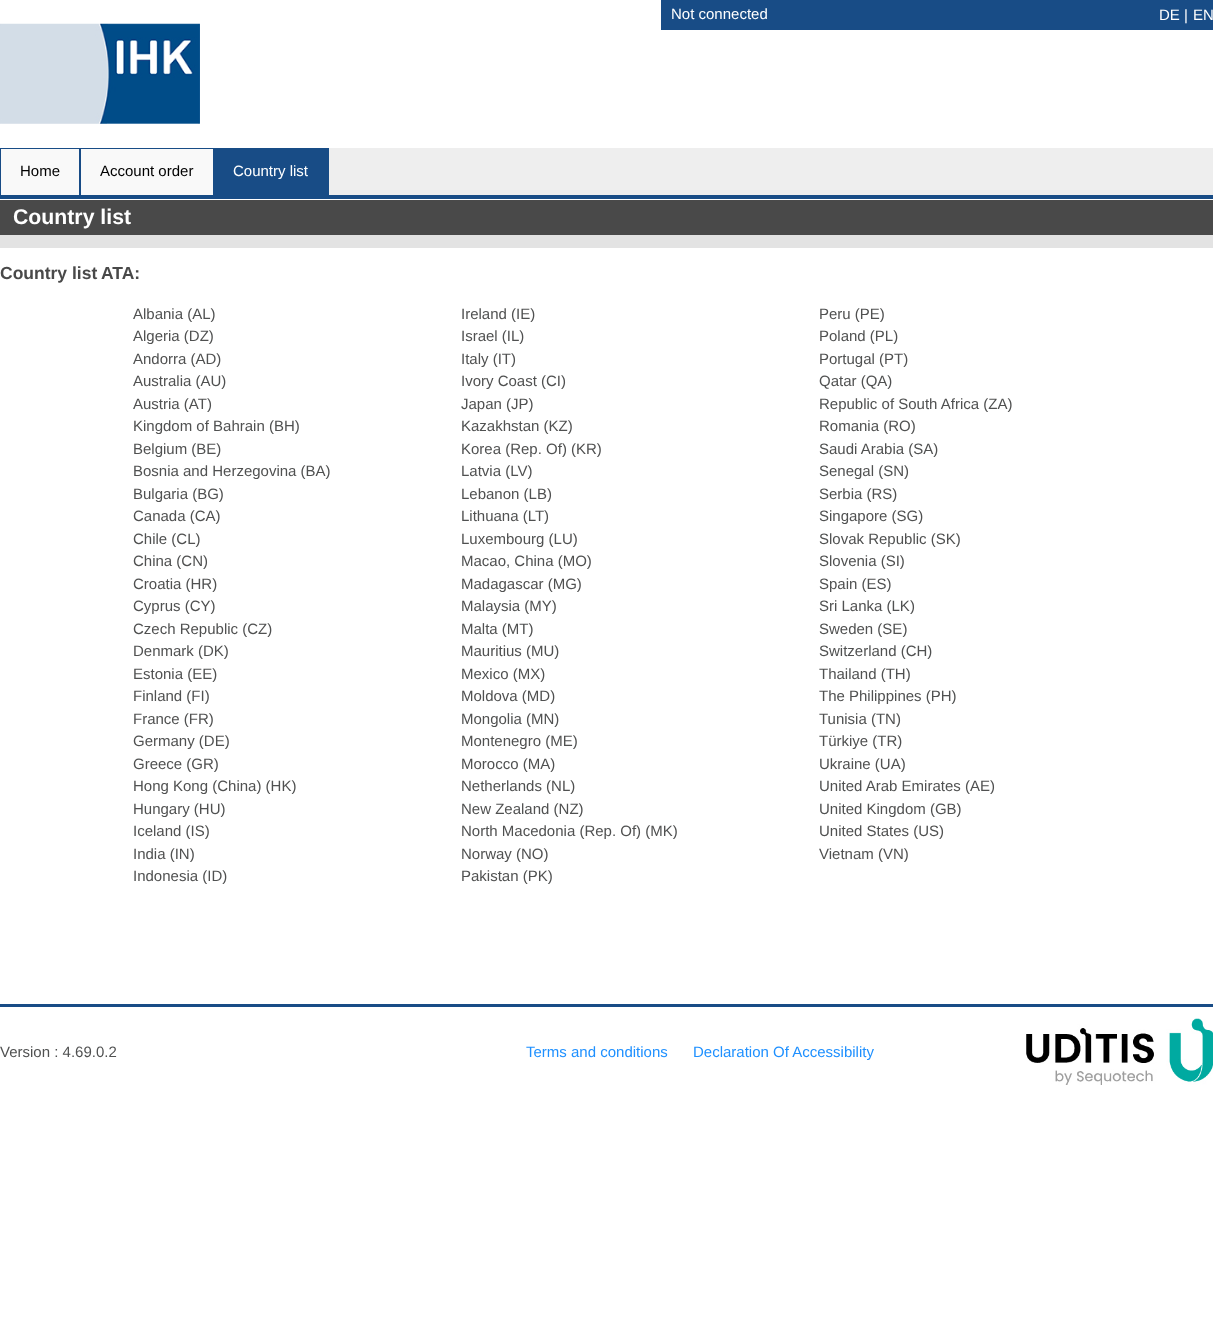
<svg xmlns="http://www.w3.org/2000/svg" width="1213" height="1331">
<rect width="100%" height="100%" fill="#fff"/>
<image x="0" y="23" width="200" height="101" href="media/1.png"/>
<rect x="661" width="552" height="30" fill="#184c86"/>
<text x="671" y="19" style="font-family:Liberation Sans;font-size:15px;fill:#fff">Not connected</text>
<text x="1159" y="20" style="font-family:Liberation Sans;font-size:15px;fill:#fff">DE</text>
<text x="1184" y="20" style="font-family:Liberation Sans;font-size:15px;fill:#fff">|</text>
<text x="1193" y="20" style="font-family:Liberation Sans;font-size:15px;fill:#fff">EN</text>
<rect x="329" y="148" width="884" height="47" fill="#eee"/>
<rect y="195" width="1213" height="4" fill="#184c86"/>
<rect x="1" y="149" width="78" height="46" fill="#f9f9f9"/>
<rect y="148" width="329" height="1" fill="#184c86"/>
<rect x="79" y="148" width="2" height="47" fill="#184c86"/>
<rect y="148" width="1" height="47" fill="#184c86"/>
<text x="20" y="176" style="font-family:Liberation Sans;font-size:15px;fill:#000">Home</text>
<rect x="81" y="149" width="132" height="46" fill="#f9f9f9"/>
<rect x="213" y="148" width="2" height="47" fill="#184c86"/>
<text x="100" y="176" style="font-family:Liberation Sans;font-size:15px;fill:#000">Account order</text>
<rect x="215" y="149" width="113" height="46" fill="#184c86"/>
<rect x="328" y="148" width="1" height="47" fill="#184c86"/>
<text x="233" y="176" style="font-family:Liberation Sans;font-size:15px;fill:#fff">Country list</text>
<rect y="200" width="1213" height="35" fill="#494949"/>
<text x="13" y="224" style="font-family:Liberation Sans;font-size:21.25px;font-weight:bold;fill:#fff">Country list</text>
<rect y="235" width="1213" height="13" fill="#e3e3e3"/>
<text x="0" y="279" style="font-family:Liberation Sans;font-size:17.5px;font-weight:bold;fill:#494949">Country list</text>
<text x="101" y="279" style="font-family:Liberation Sans;font-size:17.5px;font-weight:bold;fill:#494949">ATA:</text>
<text x="133" y="319" style="font-family:Liberation Sans;font-size:15px;fill:#505151">Albania (AL)</text>
<text x="133" y="341" style="font-family:Liberation Sans;font-size:15px;fill:#505151">Algeria (DZ)</text>
<text x="133" y="364" style="font-family:Liberation Sans;font-size:15px;fill:#505151">Andorra (AD)</text>
<text x="133" y="386" style="font-family:Liberation Sans;font-size:15px;fill:#505151">Australia (AU)</text>
<text x="133" y="409" style="font-family:Liberation Sans;font-size:15px;fill:#505151">Austria (AT)</text>
<text x="133" y="431" style="font-family:Liberation Sans;font-size:15px;fill:#505151">Kingdom of Bahrain (BH)</text>
<text x="133" y="454" style="font-family:Liberation Sans;font-size:15px;fill:#505151">Belgium (BE)</text>
<text x="133" y="476" style="font-family:Liberation Sans;font-size:15px;fill:#505151">Bosnia and Herzegovina (BA)</text>
<text x="133" y="499" style="font-family:Liberation Sans;font-size:15px;fill:#505151">Bulgaria (BG)</text>
<text x="133" y="521" style="font-family:Liberation Sans;font-size:15px;fill:#505151">Canada (CA)</text>
<text x="133" y="544" style="font-family:Liberation Sans;font-size:15px;fill:#505151">Chile (CL)</text>
<text x="133" y="566" style="font-family:Liberation Sans;font-size:15px;fill:#505151">China (CN)</text>
<text x="133" y="589" style="font-family:Liberation Sans;font-size:15px;fill:#505151">Croatia (HR)</text>
<text x="133" y="611" style="font-family:Liberation Sans;font-size:15px;fill:#505151">Cyprus (CY)</text>
<text x="133" y="634" style="font-family:Liberation Sans;font-size:15px;fill:#505151">Czech Republic (CZ)</text>
<text x="133" y="656" style="font-family:Liberation Sans;font-size:15px;fill:#505151">Denmark (DK)</text>
<text x="133" y="679" style="font-family:Liberation Sans;font-size:15px;fill:#505151">Estonia (EE)</text>
<text x="133" y="701" style="font-family:Liberation Sans;font-size:15px;fill:#505151">Finland (FI)</text>
<text x="133" y="724" style="font-family:Liberation Sans;font-size:15px;fill:#505151">France (FR)</text>
<text x="133" y="746" style="font-family:Liberation Sans;font-size:15px;fill:#505151">Germany (DE)</text>
<text x="133" y="769" style="font-family:Liberation Sans;font-size:15px;fill:#505151">Greece (GR)</text>
<text x="133" y="791" style="font-family:Liberation Sans;font-size:15px;fill:#505151">Hong Kong (China) (HK)</text>
<text x="133" y="814" style="font-family:Liberation Sans;font-size:15px;fill:#505151">Hungary (HU)</text>
<text x="133" y="836" style="font-family:Liberation Sans;font-size:15px;fill:#505151">Iceland (IS)</text>
<text x="133" y="859" style="font-family:Liberation Sans;font-size:15px;fill:#505151">India (IN)</text>
<text x="133" y="881" style="font-family:Liberation Sans;font-size:15px;fill:#505151">Indonesia (ID)</text>
<text x="461" y="319" style="font-family:Liberation Sans;font-size:15px;fill:#505151">Ireland (IE)</text>
<text x="461" y="341" style="font-family:Liberation Sans;font-size:15px;fill:#505151">Israel (IL)</text>
<text x="461" y="364" style="font-family:Liberation Sans;font-size:15px;fill:#505151">Italy (IT)</text>
<text x="461" y="386" style="font-family:Liberation Sans;font-size:15px;fill:#505151">Ivory Coast (CI)</text>
<text x="461" y="409" style="font-family:Liberation Sans;font-size:15px;fill:#505151">Japan (JP)</text>
<text x="461" y="431" style="font-family:Liberation Sans;font-size:15px;fill:#505151">Kazakhstan (KZ)</text>
<text x="461" y="454" style="font-family:Liberation Sans;font-size:15px;fill:#505151">Korea (Rep. Of) (KR)</text>
<text x="461" y="476" style="font-family:Liberation Sans;font-size:15px;fill:#505151">Latvia (LV)</text>
<text x="461" y="499" style="font-family:Liberation Sans;font-size:15px;fill:#505151">Lebanon (LB)</text>
<text x="461" y="521" style="font-family:Liberation Sans;font-size:15px;fill:#505151">Lithuana (LT)</text>
<text x="461" y="544" style="font-family:Liberation Sans;font-size:15px;fill:#505151">Luxembourg (LU)</text>
<text x="461" y="566" style="font-family:Liberation Sans;font-size:15px;fill:#505151">Macao, China (MO)</text>
<text x="461" y="589" style="font-family:Liberation Sans;font-size:15px;fill:#505151">Madagascar (MG)</text>
<text x="461" y="611" style="font-family:Liberation Sans;font-size:15px;fill:#505151">Malaysia (MY)</text>
<text x="461" y="634" style="font-family:Liberation Sans;font-size:15px;fill:#505151">Malta (MT)</text>
<text x="461" y="656" style="font-family:Liberation Sans;font-size:15px;fill:#505151">Mauritius (MU)</text>
<text x="461" y="679" style="font-family:Liberation Sans;font-size:15px;fill:#505151">Mexico (MX)</text>
<text x="461" y="701" style="font-family:Liberation Sans;font-size:15px;fill:#505151">Moldova (MD)</text>
<text x="461" y="724" style="font-family:Liberation Sans;font-size:15px;fill:#505151">Mongolia (MN)</text>
<text x="461" y="746" style="font-family:Liberation Sans;font-size:15px;fill:#505151">Montenegro (ME)</text>
<text x="461" y="769" style="font-family:Liberation Sans;font-size:15px;fill:#505151">Morocco (MA)</text>
<text x="461" y="791" style="font-family:Liberation Sans;font-size:15px;fill:#505151">Netherlands (NL)</text>
<text x="461" y="814" style="font-family:Liberation Sans;font-size:15px;fill:#505151">New Zealand (NZ)</text>
<text x="461" y="836" style="font-family:Liberation Sans;font-size:15px;fill:#505151">North Macedonia (Rep. Of) (MK)</text>
<text x="461" y="859" style="font-family:Liberation Sans;font-size:15px;fill:#505151">Norway (NO)</text>
<text x="461" y="881" style="font-family:Liberation Sans;font-size:15px;fill:#505151">Pakistan (PK)</text>
<text x="819" y="319" style="font-family:Liberation Sans;font-size:15px;fill:#505151">Peru (PE)</text>
<text x="819" y="341" style="font-family:Liberation Sans;font-size:15px;fill:#505151">Poland (PL)</text>
<text x="819" y="364" style="font-family:Liberation Sans;font-size:15px;fill:#505151">Portugal (PT)</text>
<text x="819" y="386" style="font-family:Liberation Sans;font-size:15px;fill:#505151">Qatar (QA)</text>
<text x="819" y="409" style="font-family:Liberation Sans;font-size:15px;fill:#505151">Republic of South Africa (ZA)</text>
<text x="819" y="431" style="font-family:Liberation Sans;font-size:15px;fill:#505151">Romania (RO)</text>
<text x="819" y="454" style="font-family:Liberation Sans;font-size:15px;fill:#505151">Saudi Arabia (SA)</text>
<text x="819" y="476" style="font-family:Liberation Sans;font-size:15px;fill:#505151">Senegal (SN)</text>
<text x="819" y="499" style="font-family:Liberation Sans;font-size:15px;fill:#505151">Serbia (RS)</text>
<text x="819" y="521" style="font-family:Liberation Sans;font-size:15px;fill:#505151">Singapore (SG)</text>
<text x="819" y="544" style="font-family:Liberation Sans;font-size:15px;fill:#505151">Slovak Republic (SK)</text>
<text x="819" y="566" style="font-family:Liberation Sans;font-size:15px;fill:#505151">Slovenia (SI)</text>
<text x="819" y="589" style="font-family:Liberation Sans;font-size:15px;fill:#505151">Spain (ES)</text>
<text x="819" y="611" style="font-family:Liberation Sans;font-size:15px;fill:#505151">Sri Lanka (LK)</text>
<text x="819" y="634" style="font-family:Liberation Sans;font-size:15px;fill:#505151">Sweden (SE)</text>
<text x="819" y="656" style="font-family:Liberation Sans;font-size:15px;fill:#505151">Switzerland (CH)</text>
<text x="819" y="679" style="font-family:Liberation Sans;font-size:15px;fill:#505151">Thailand (TH)</text>
<text x="819" y="701" style="font-family:Liberation Sans;font-size:15px;fill:#505151">The Philippines (PH)</text>
<text x="819" y="724" style="font-family:Liberation Sans;font-size:15px;fill:#505151">Tunisia (TN)</text>
<text x="819" y="746" style="font-family:Liberation Sans;font-size:15px;fill:#505151">Türkiye (TR)</text>
<text x="819" y="769" style="font-family:Liberation Sans;font-size:15px;fill:#505151">Ukraine (UA)</text>
<text x="819" y="791" style="font-family:Liberation Sans;font-size:15px;fill:#505151">United Arab Emirates (AE)</text>
<text x="819" y="814" style="font-family:Liberation Sans;font-size:15px;fill:#505151">United Kingdom (GB)</text>
<text x="819" y="836" style="font-family:Liberation Sans;font-size:15px;fill:#505151">United States (US)</text>
<text x="819" y="859" style="font-family:Liberation Sans;font-size:15px;fill:#505151">Vietnam (VN)</text>
<rect y="1004" width="1213" height="3" fill="#184c86"/>
<text x="0" y="1057" style="font-family:Liberation Sans;font-size:15px;fill:#505151">Version : 4.69.0.2</text>
<text x="526" y="1057" style="font-family:Liberation Sans;font-size:15px;fill:#1e90ff">Terms and conditions</text>
<text x="693" y="1057" style="font-family:Liberation Sans;font-size:15px;fill:#1e90ff">Declaration Of Accessibility</text>
<image x="1026" y="1018" width="187" height="67" href="media/2.png"/>
</svg>
